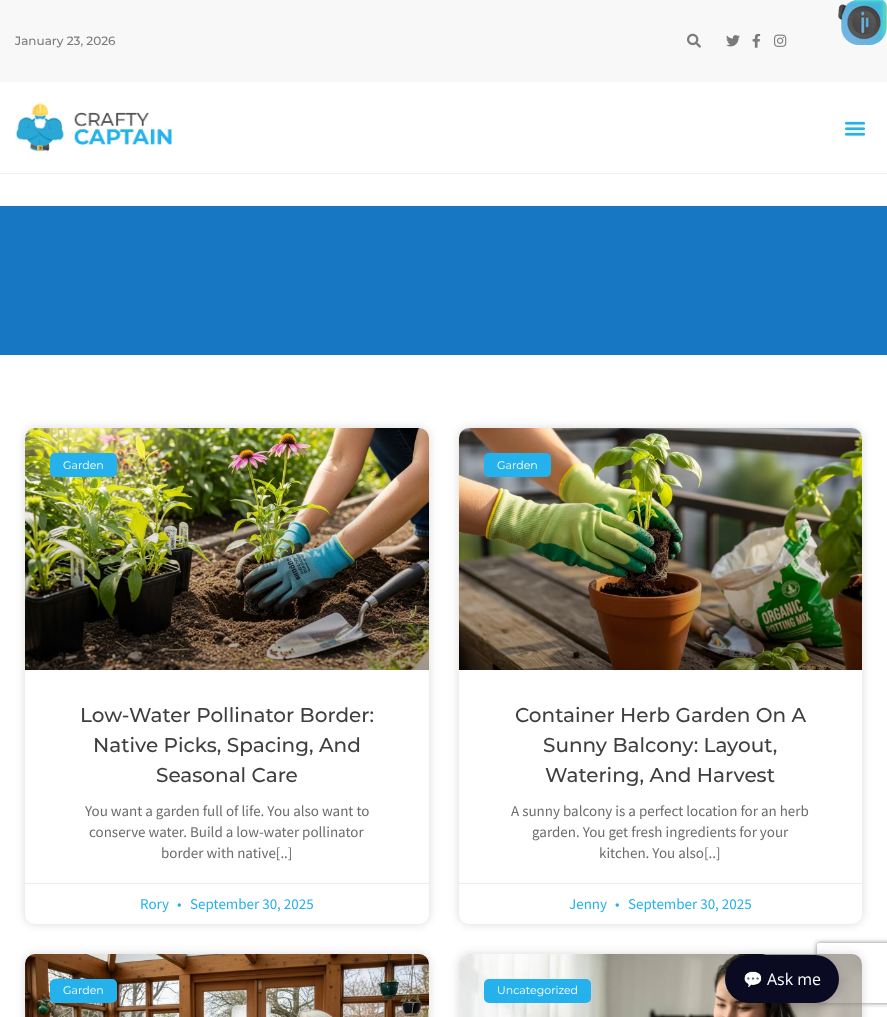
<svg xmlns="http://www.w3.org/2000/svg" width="887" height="1017">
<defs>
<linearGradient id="g1" gradientUnits="userSpaceOnUse" x1="227" y1="670" x2="227" y2="428"><stop offset="0" stop-color="#000" stop-opacity="0.35"/><stop offset="0.75" stop-color="#000" stop-opacity="0"/></linearGradient>
<linearGradient id="g2" gradientUnits="userSpaceOnUse" x1="661" y1="670" x2="661" y2="428"><stop offset="0" stop-color="#000" stop-opacity="0.35"/><stop offset="0.75" stop-color="#000" stop-opacity="0"/></linearGradient>
<clipPath id="clip1"><path d="M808 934h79v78h-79zm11 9h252c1 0 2 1 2 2v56c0 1-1 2-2 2h-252c-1 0-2-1-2-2v-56c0-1 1-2 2-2z" clip-rule="evenodd"/></clipPath>
</defs>
<rect width="100%" height="100%" fill="#fff"/>
<rect width="887" height="82" fill="#f8f8f8"/>
<text x="15" y="45" style="font-family:Montserrat;font-size:12px;font-weight:500;fill:#7b7b7b">January 23, 2026</text>
<image x="687" y="33" width="14" height="15" href="media/1.png"/>
<image x="726" y="35" width="14" height="12" href="media/2.png"/>
<image x="752" y="34" width="9" height="14" href="media/3.png"/>
<image x="774" y="34" width="13" height="13" href="media/4.png"/>
<rect y="173" width="887" height="1" fill="#f2f2f2"/>
<image x="16" y="103" width="156" height="49" href="media/5.png"/>
<image x="844" y="121" width="22" height="15" href="media/6.png"/>
<image x="838" y="0" width="49" height="45" href="media/7.png"/>
<rect y="206" width="887" height="149" fill="#1877c2"/>
<rect x="25" y="428" width="404" height="496" rx="10" fill="#00000026" filter="blur(5px)"/>
<rect x="25" y="428" width="404" height="496" rx="10" fill="#fff"/>
<image x="25" y="428" width="404" height="242" href="media/8.png"/>
<rect x="25" y="500" width="404" height="170" fill="url(#g1)"/>
<rect x="50" y="453" width="67" height="24" rx="5" fill="#25b1eb"/>
<text x="63" y="469" style="font-family:Montserrat;font-size:11px;fill:#fff">Garden</text>
<text x="80" y="722" style="font-family:Montserrat;font-size:20px;font-weight:500;fill:#3f3f3f">Low-Water Pollinator Border:</text>
<text x="93" y="752" style="font-family:Montserrat;font-size:20px;font-weight:500;fill:#3f3f3f">Native Picks, Spacing, And</text>
<text x="156" y="782" style="font-family:Montserrat;font-size:20px;font-weight:500;fill:#3f3f3f">Seasonal Care</text>
<text x="85" y="816" style="font-family:Source Sans Pro;font-size:15px;fill:#6c6c6c">You want a garden full of life. You also want to</text>
<text x="89" y="837" style="font-family:Source Sans Pro;font-size:15px;fill:#6c6c6c">conserve water. Build a low-water pollinator</text>
<text x="161" y="858" style="font-family:Source Sans Pro;font-size:15px;fill:#6c6c6c">border with native[..]</text>
<rect x="25" y="883" width="404" height="1" fill="#ececee"/>
<text x="140" y="909" style="font-family:Source Sans Pro;font-size:15px;fill:#25b1eb">Rory</text>
<text x="177" y="909" style="font-family:Source Sans Pro;font-size:15px;fill:#25b1eb">•</text>
<text x="190" y="909" style="font-family:Source Sans Pro;font-size:15px;fill:#25b1eb">September 30, 2025</text>
<rect x="459" y="428" width="403" height="496" rx="10" fill="#00000026" filter="blur(5px)"/>
<rect x="459" y="428" width="403" height="496" rx="10" fill="#fff"/>
<image x="459" y="428" width="403" height="242" href="media/9.png"/>
<rect x="459" y="500" width="403" height="170" fill="url(#g2)"/>
<rect x="484" y="453" width="67" height="24" rx="5" fill="#25b1eb"/>
<text x="497" y="469" style="font-family:Montserrat;font-size:11px;fill:#fff">Garden</text>
<text x="515" y="722" style="font-family:Montserrat;font-size:20px;font-weight:500;fill:#3f3f3f">Container Herb Garden On A</text>
<text x="543" y="752" style="font-family:Montserrat;font-size:20px;font-weight:500;fill:#3f3f3f">Sunny Balcony: Layout,</text>
<text x="545" y="782" style="font-family:Montserrat;font-size:20px;font-weight:500;fill:#3f3f3f">Watering, And Harvest</text>
<text x="511" y="816" style="font-family:Source Sans Pro;font-size:15px;fill:#6c6c6c">A sunny balcony is a perfect location for an herb</text>
<text x="532" y="837" style="font-family:Source Sans Pro;font-size:15px;fill:#6c6c6c">garden. You get fresh ingredients for your</text>
<text x="599" y="858" style="font-family:Source Sans Pro;font-size:15px;fill:#6c6c6c">kitchen. You also[..]</text>
<rect x="459" y="883" width="403" height="1" fill="#ececee"/>
<text x="569" y="909" style="font-family:Source Sans Pro;font-size:15px;fill:#25b1eb">Jenny</text>
<text x="615" y="909" style="font-family:Source Sans Pro;font-size:15px;fill:#25b1eb">•</text>
<text x="628" y="909" style="font-family:Source Sans Pro;font-size:15px;fill:#25b1eb">September 30, 2025</text>
<rect x="25" y="954" width="404" height="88" rx="10" fill="#00000026" filter="blur(5px)"/>
<path d="M35 954h384c5.5 0 10 4.5 10 10v53h-404v-53c0-5.5 4.5-10 10-10z" fill="#fff"/>
<image x="25" y="954" width="404" height="63" href="media/10.png"/>
<rect x="50" y="979" width="67" height="24" rx="5" fill="#25b1eb"/>
<text x="63" y="994" style="font-family:Montserrat;font-size:11px;fill:#fff">Garden</text>
<rect x="459" y="954" width="403" height="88" rx="10" fill="#00000026" filter="blur(5px)"/>
<path d="M469 954h383c5.5 0 10 4.5 10 10v53h-403v-53c0-5.5 4.5-10 10-10z" fill="#fff"/>
<image x="459" y="954" width="403" height="63" href="media/11.png"/>
<rect x="484" y="979" width="107" height="24" rx="5" fill="#25b1eb"/>
<text x="497" y="994" style="font-family:Montserrat;font-size:11px;fill:#fff">Uncategorized</text>
<g clip-path="url(#clip1)">
<rect x="817" y="943" width="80" height="60" rx="2" fill="#808080" filter="blur(2.5px)"/>
</g>
<rect x="725" y="959" width="114" height="48" rx="24" fill="#00000033" filter="blur(6px)"/>
<rect x="725" y="955" width="114" height="48" rx="24" fill="#0a0a23"/>
<text x="743" y="985" style="font-family:Noto Color Emoji;font-size:16px;fill:#fff">💬</text>
<text x="767" y="985" style="font-family:Open Sans;font-size:16px;fill:#fff">Ask me</text>
</svg>
